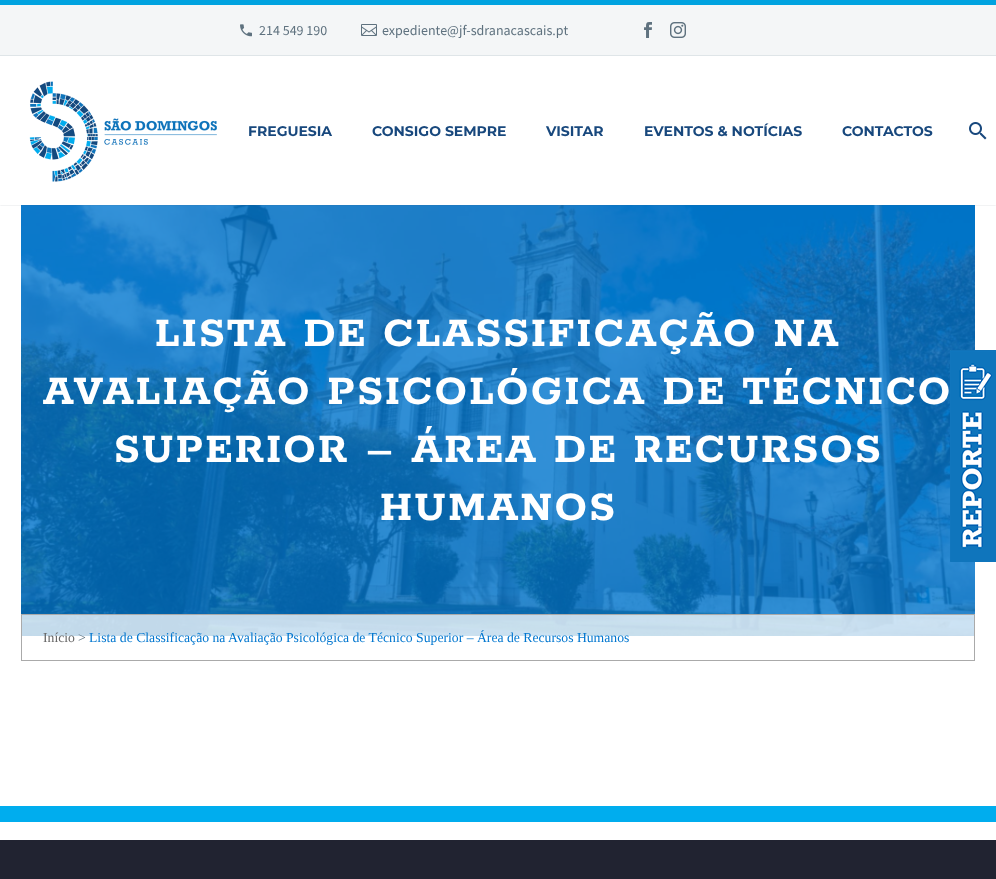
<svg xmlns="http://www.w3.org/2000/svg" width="996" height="879">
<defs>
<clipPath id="clip1"><rect x="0" y="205" width="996" height="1"/></clipPath>
</defs>
<rect width="100%" height="100%" fill="#fff"/>
<image x="21" y="205" width="954" height="431" href="media/7.png"/>
<g clip-path="url(#clip1)">
<rect width="996" height="205" fill="#38455433" filter="blur(1px)"/>
</g>
<rect y="5" width="996" height="50" fill="#f4f6f7"/>
<rect width="996" height="5" fill="#00a3e0"/>
<rect y="55" width="996" height="1" fill="#dfe5e8"/>
<image x="240" y="24" width="12" height="13" href="media/1.png"/>
<text x="259" y="35" style="font-family:Source Sans Pro;font-size:14px;fill:#5f727f">214 549 190</text>
<image x="361" y="24" width="16" height="12" href="media/2.png"/>
<text x="382" y="35" style="font-family:Source Sans Pro;font-size:14px;fill:#5f727f">expediente@jf-sdranacascais.pt</text>
<image x="644" y="22" width="8" height="16" href="media/3.png"/>
<image x="670" y="22" width="16" height="16" href="media/4.png"/>
<image x="29" y="81" width="188" height="101" href="media/5.png"/>
<text x="248" y="136" style="font-family:Montserrat;font-size:14px;font-weight:bold;fill:#18487d">FREGUESIA</text>
<text x="372" y="136" style="font-family:Montserrat;font-size:14px;font-weight:bold;fill:#18487d">CONSIGO SEMPRE</text>
<text x="546" y="136" style="font-family:Montserrat;font-size:14px;font-weight:bold;fill:#18487d">VISITAR</text>
<text x="644" y="136" style="font-family:Montserrat;font-size:14px;font-weight:bold;fill:#18487d">EVENTOS &amp; NOTÍCIAS</text>
<text x="842" y="136" style="font-family:Montserrat;font-size:14px;font-weight:bold;fill:#18487d">CONTACTOS</text>
<image x="969" y="122" width="18" height="18" href="media/6.png"/>
<text x="155" y="346" style="font-family:Rokkitt;font-size:45px;font-weight:bold;letter-spacing:2.25px;fill:#fff">LISTA DE CLASSIFICAÇÃO NA</text>
<text x="43" y="404" style="font-family:Rokkitt;font-size:45px;font-weight:bold;letter-spacing:2.25px;fill:#fff">AVALIAÇÃO PSICOLÓGICA DE TÉCNICO</text>
<text x="114" y="462" style="font-family:Rokkitt;font-size:45px;font-weight:bold;letter-spacing:2.25px;fill:#fff">SUPERIOR – ÁREA DE RECURSOS</text>
<text x="380" y="520" style="font-family:Rokkitt;font-size:45px;font-weight:bold;letter-spacing:2.25px;fill:#fff">HUMANOS</text>
<rect x="22" y="615" width="952" height="21" fill="#ffffffc2"/>
<rect x="21.5" y="614.5" width="953" height="46" fill="none" stroke="#aaa"/>
<text x="43" y="642" style="font-family:Liberation Serif;font-size:13.7px;fill:#666">Início</text>
<text x="78" y="642" style="font-family:Liberation Serif;font-size:13.7px;fill:#5f727f">&gt;</text>
<text x="89" y="642" style="font-family:Liberation Serif;font-size:13.7px;fill:#0076cf">Lista de Classificação na Avaliação Psicológica de Técnico Superior – Área de Recursos Humanos</text>
<rect y="806" width="996" height="16" fill="#00adee"/>
<rect y="840" width="996" height="39" fill="#212331"/>
<image x="950" y="350" width="46" height="212" href="media/8.png"/>
</svg>
